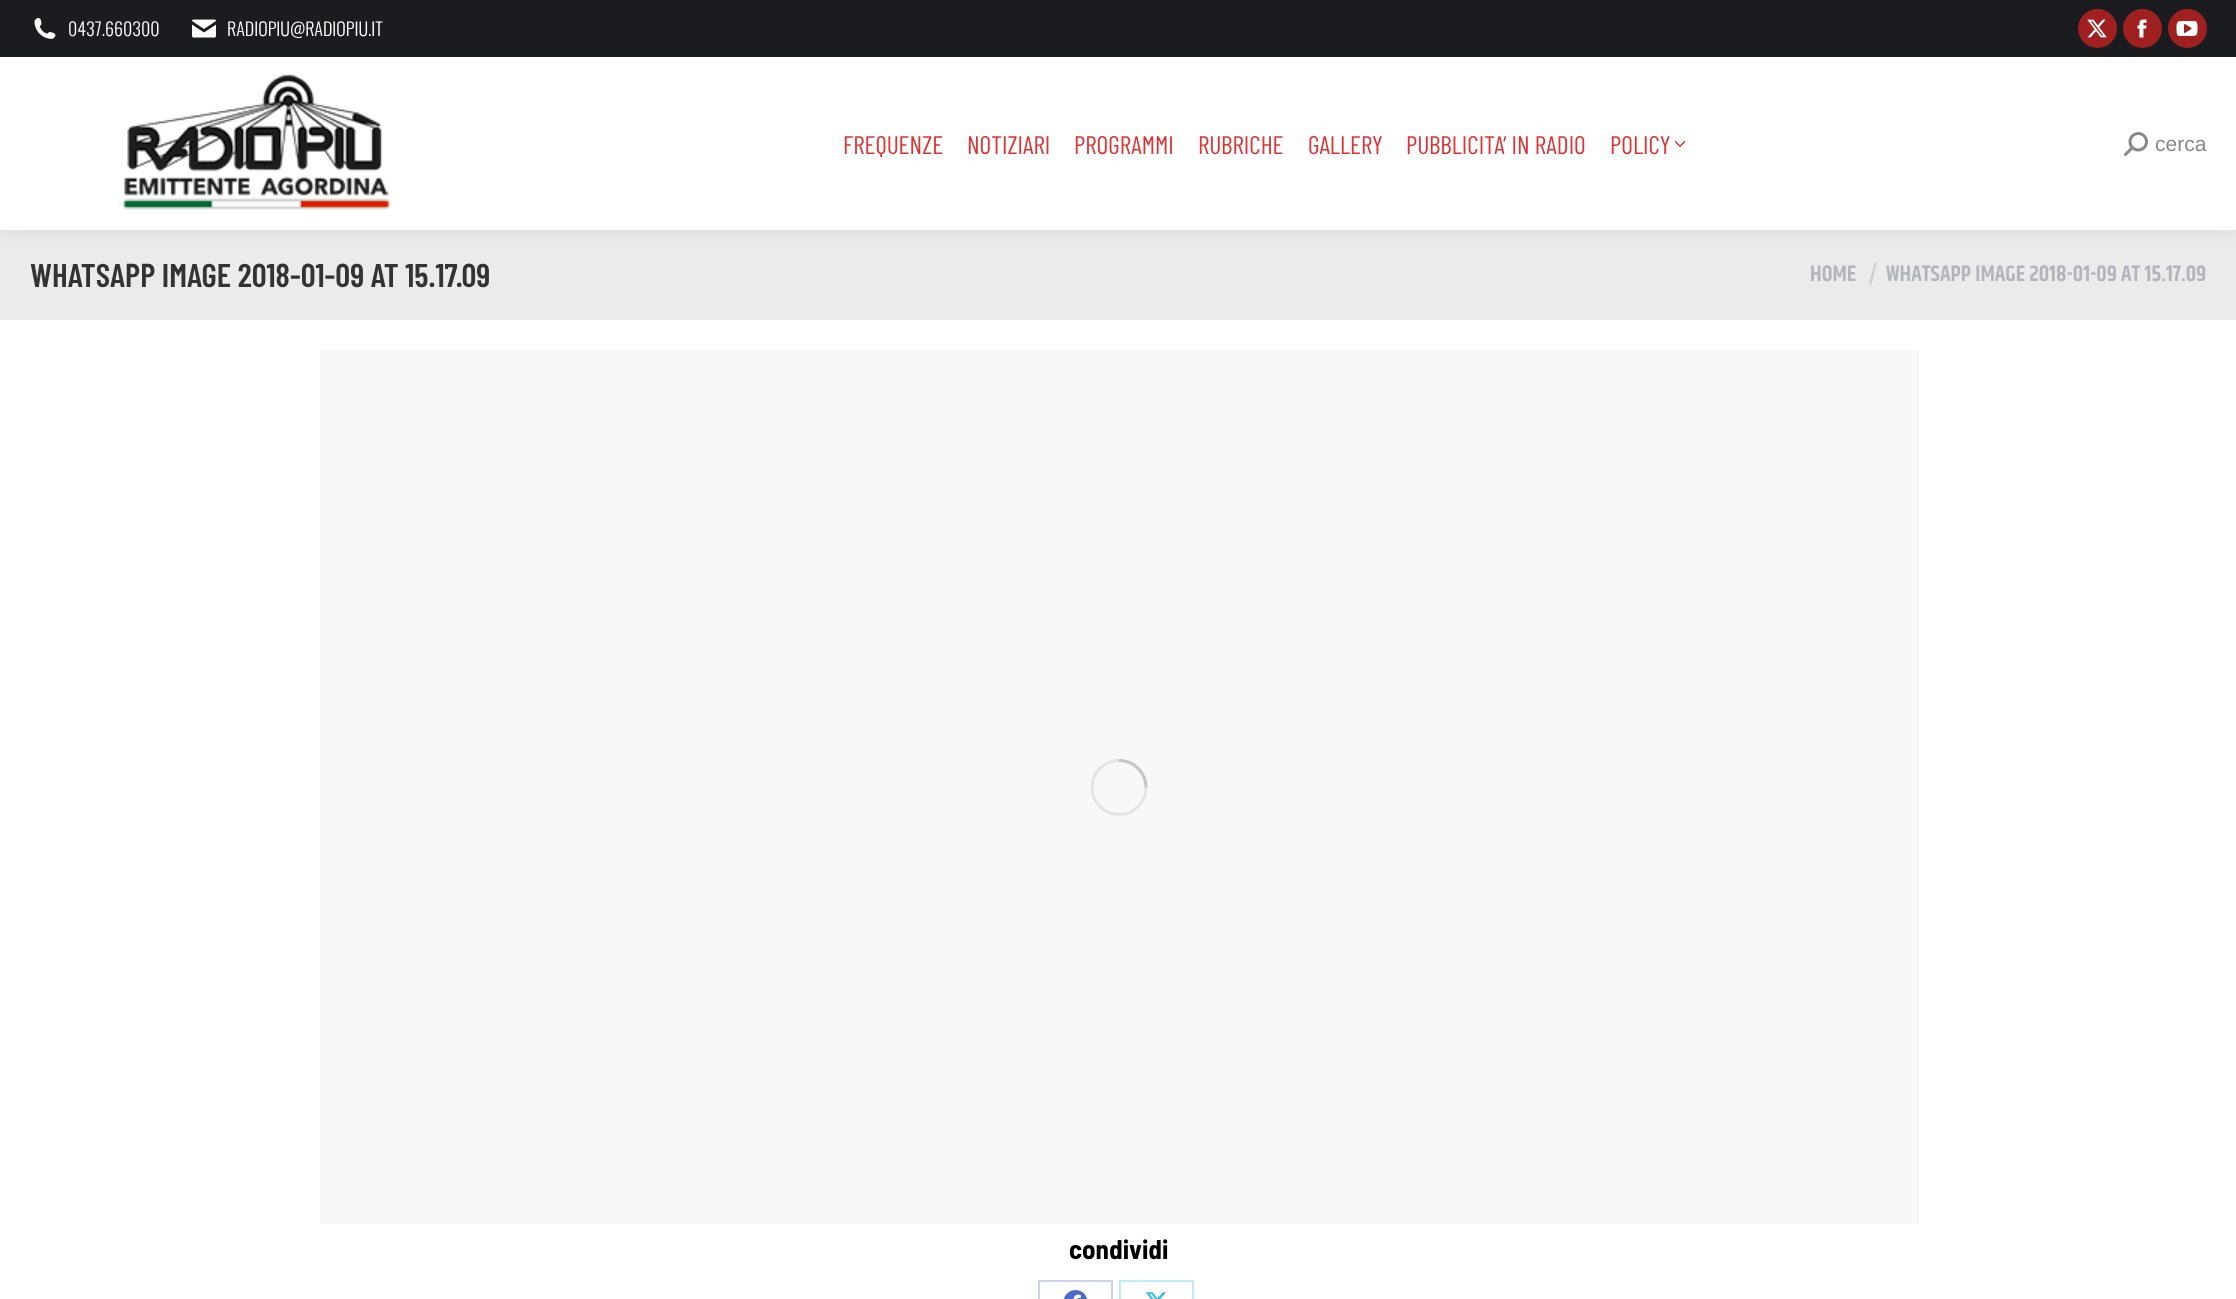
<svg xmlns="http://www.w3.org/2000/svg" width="2236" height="1299">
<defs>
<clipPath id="clip1"><rect x="1091" y="759" width="57" height="57"/></clipPath>
</defs>
<rect width="100%" height="100%" fill="#fff"/>
<rect y="230" width="2236" height="90" fill="#ebebeb"/>
<rect x="-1" y="-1" width="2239" height="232" fill="#00000012" filter="blur(11px)"/>
<rect y="57" width="2236" height="173" fill="#fff"/>
<rect width="2236" height="57" fill="#1a1c20"/>
<image x="34" y="18" width="22" height="21" href="media/1.png"/>
<text x="68" y="36" style="font-family:Oswald;font-size:18px;font-weight:300;fill:#fff">0437.660300</text>
<image x="192" y="19" width="24" height="19" href="media/2.png"/>
<text x="227" y="36" style="font-family:Oswald;font-size:18px;font-weight:300;fill:#fff">RADIOPIU@RADIOPIU.IT</text>
<circle cx="2097.5" cy="28.5" r="19.5" fill="#a02020"/>
<image x="2087" y="19" width="20" height="19" href="media/3.png"/>
<circle cx="2142.5" cy="28.5" r="19.5" fill="#a02020"/>
<image x="2137" y="19" width="10" height="19" href="media/4.png"/>
<circle cx="2187.5" cy="28.5" r="19.5" fill="#a02020"/>
<image x="2176" y="21" width="22" height="15" href="media/5.png"/>
<image x="121" y="74" width="271" height="136" href="media/6.png"/>
<text x="843" y="154" style="font-family:Barlow Condensed;font-size:25.5px;fill:#d33">FREQUENZE</text>
<text x="967" y="154" style="font-family:Barlow Condensed;font-size:25.5px;fill:#d33">NOTIZIARI</text>
<text x="1074" y="154" style="font-family:Barlow Condensed;font-size:25.5px;fill:#d33">PROGRAMMI</text>
<text x="1198" y="154" style="font-family:Barlow Condensed;font-size:25.5px;fill:#d33">RUBRICHE</text>
<text x="1308" y="154" style="font-family:Barlow Condensed;font-size:25.5px;fill:#d33">GALLERY</text>
<text x="1406" y="154" style="font-family:Barlow Condensed;font-size:25.5px;fill:#d33">PUBBLICITA’ IN RADIO</text>
<text x="1610" y="154" style="font-family:Barlow Condensed;font-size:25.5px;fill:#d33">POLICY</text>
<image x="1674" y="141" width="12" height="6" href="media/7.png"/>
<image x="2124" y="132" width="24" height="24" href="media/8.png"/>
<text x="2155" y="151" style="font-family:Liberation Sans;font-size:21px;fill:#888">cerca</text>
<text x="30" y="287" style="font-family:Barlow Condensed;font-size:33px;font-weight:600;fill:#333">WHATSAPP IMAGE 2018-01-09 AT 15.17.09</text>
<text x="1810" y="281" style="font-family:Khand;font-size:22.5px;font-weight:600;fill:#b4b5bb">HOME</text>
<text x="1868" y="281" style="font-family:Khand;font-size:22.5px;font-weight:600;fill:#d0d0d3">/</text>
<text x="1886" y="281" style="font-family:Khand;font-size:22.5px;font-weight:600;fill:#b4b5bb">WHATSAPP IMAGE 2018-01-09 AT 15.17.09</text>
<rect x="320" y="350" width="1599" height="874" fill="#f8f8f8"/>
<g clip-path="url(#clip1)">
<circle cx="1119" cy="787.5" r="27" fill="none" stroke="#e4e4e4" stroke-width="3"/>
</g>
<path d="M1146 787.5c0-15-12-27-27-27" fill="none" stroke="#66666640" stroke-width="3"/>
<text x="1069" y="1259" style="font-family:Barlow Semi Condensed;font-size:27px;font-weight:bold;fill:#000">condividi</text>
<rect x="1039" y="1281" width="73" height="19" fill="none" stroke="#c9d2ee" stroke-width="2"/>
<image x="1064" y="1290" width="23" height="9" href="media/9.png"/>
<rect x="1120" y="1281" width="73" height="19" fill="none" stroke="#bfecf9" stroke-width="2"/>
<image x="1145" y="1292" width="21" height="7" href="media/10.png"/>
</svg>
